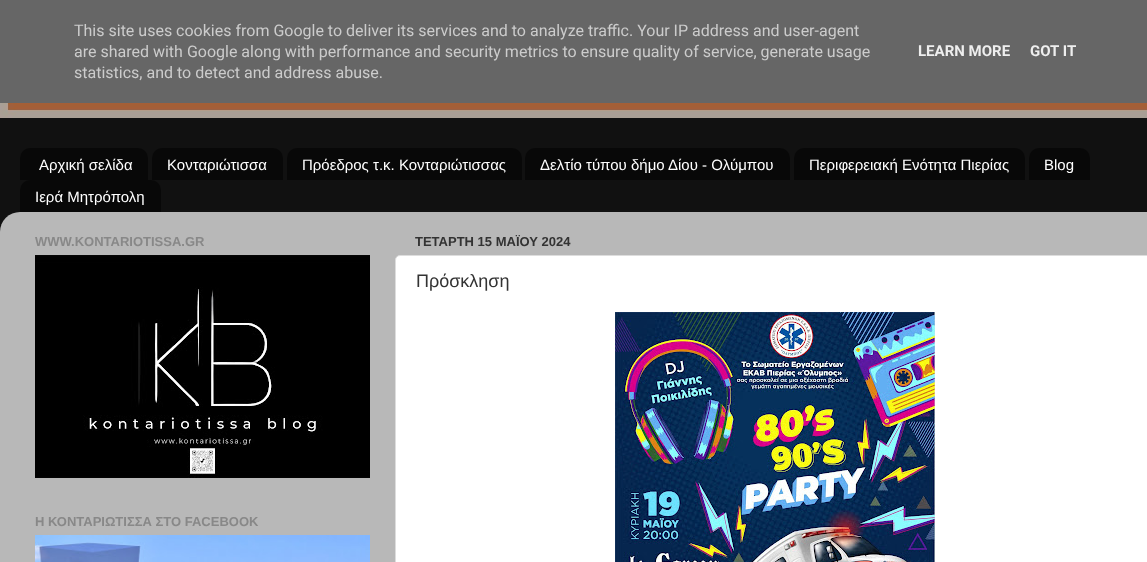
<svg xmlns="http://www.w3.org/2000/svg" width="1147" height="562">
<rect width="100%" height="100%" fill="#111"/>
<rect width="1147" height="103" fill="#666"/>
<text x="74" y="36" style="font-family:Roboto;font-size:16px;fill:#ccc">This site uses cookies from Google to deliver its services and to analyze traffic. Your IP address and user-agent</text>
<text x="74" y="57" style="font-family:Roboto;font-size:16px;fill:#ccc">are shared with Google along with performance and security metrics to ensure quality of service, generate usage</text>
<text x="74" y="78" style="font-family:Roboto;font-size:16px;fill:#ccc">statistics, and to detect and address abuse.</text>
<text x="918" y="56" style="font-family:Roboto;font-size:15px;font-weight:bold;fill:#eee">LEARN MORE</text>
<text x="1030" y="56" style="font-family:Roboto;font-size:15px;font-weight:bold;fill:#eee">GOT IT</text>
<image x="0" y="103" width="1147" height="15" href="media/1.png"/>
<image x="20" y="148" width="128" height="32" href="media/2.png"/>
<text x="39" y="170" style="font-family:Liberation Sans;font-size:15px;fill:#fff">Αρχική σελίδα</text>
<image x="152" y="148" width="131" height="32" href="media/3.png"/>
<text x="167" y="170" style="font-family:Liberation Sans;font-size:15px;fill:#fff">Κονταριώτισσα</text>
<image x="287" y="148" width="235" height="32" href="media/4.png"/>
<text x="302" y="170" style="font-family:Liberation Sans;font-size:15px;fill:#fff">Πρόεδρος τ.κ. Κονταριώτισσας</text>
<image x="525" y="148" width="265" height="32" href="media/5.png"/>
<text x="540" y="170" style="font-family:Liberation Sans;font-size:15px;fill:#fff">Δελτίο τύπου δήμο Δίου - Ολύμπου</text>
<image x="794" y="148" width="231" height="32" href="media/6.png"/>
<text x="809" y="170" style="font-family:Liberation Sans;font-size:15px;fill:#fff">Περιφερειακή Ενότητα Πιερίας</text>
<image x="1029" y="148" width="61" height="32" href="media/7.png"/>
<text x="1044" y="170" style="font-family:Liberation Sans;font-size:15px;fill:#fff">Blog</text>
<image x="20" y="180" width="141" height="32" href="media/8.png"/>
<text x="35" y="202" style="font-family:Liberation Sans;font-size:15px;fill:#fff">Ιερά Μητρόπολη</text>
<image x="0" y="212" width="1147" height="350" href="media/9.png"/>
<text x="35" y="246" style="font-family:Liberation Sans;font-size:13px;font-weight:bold;fill:#888">WWW.KONTARIOTISSA.GR</text>
<image x="35" y="255" width="335" height="223" href="media/10.png"/>
<text x="35" y="526" style="font-family:Liberation Sans;font-size:13px;font-weight:bold;fill:#888">Η ΚΟΝΤΑΡΙΩΤΙΣΣΑ ΣΤΟ FACEBOOK</text>
<image x="35" y="535" width="335" height="27" href="media/11.png"/>
<text x="415" y="246" style="font-family:Liberation Sans;font-size:13px;font-weight:bold;fill:#333">ΤΕΤΑΡΤΗ 15 ΜΑΪΟΥ 2024</text>
<rect x="395.5" y="255.5" width="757" height="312" rx="4.5" fill="#fff" stroke="#ddd"/>
<text x="416" y="287" style="font-family:Liberation Sans;font-size:18px;fill:#333">Πρόσκληση</text>
<image x="615" y="312" width="320" height="250" href="media/12.png"/>
</svg>
